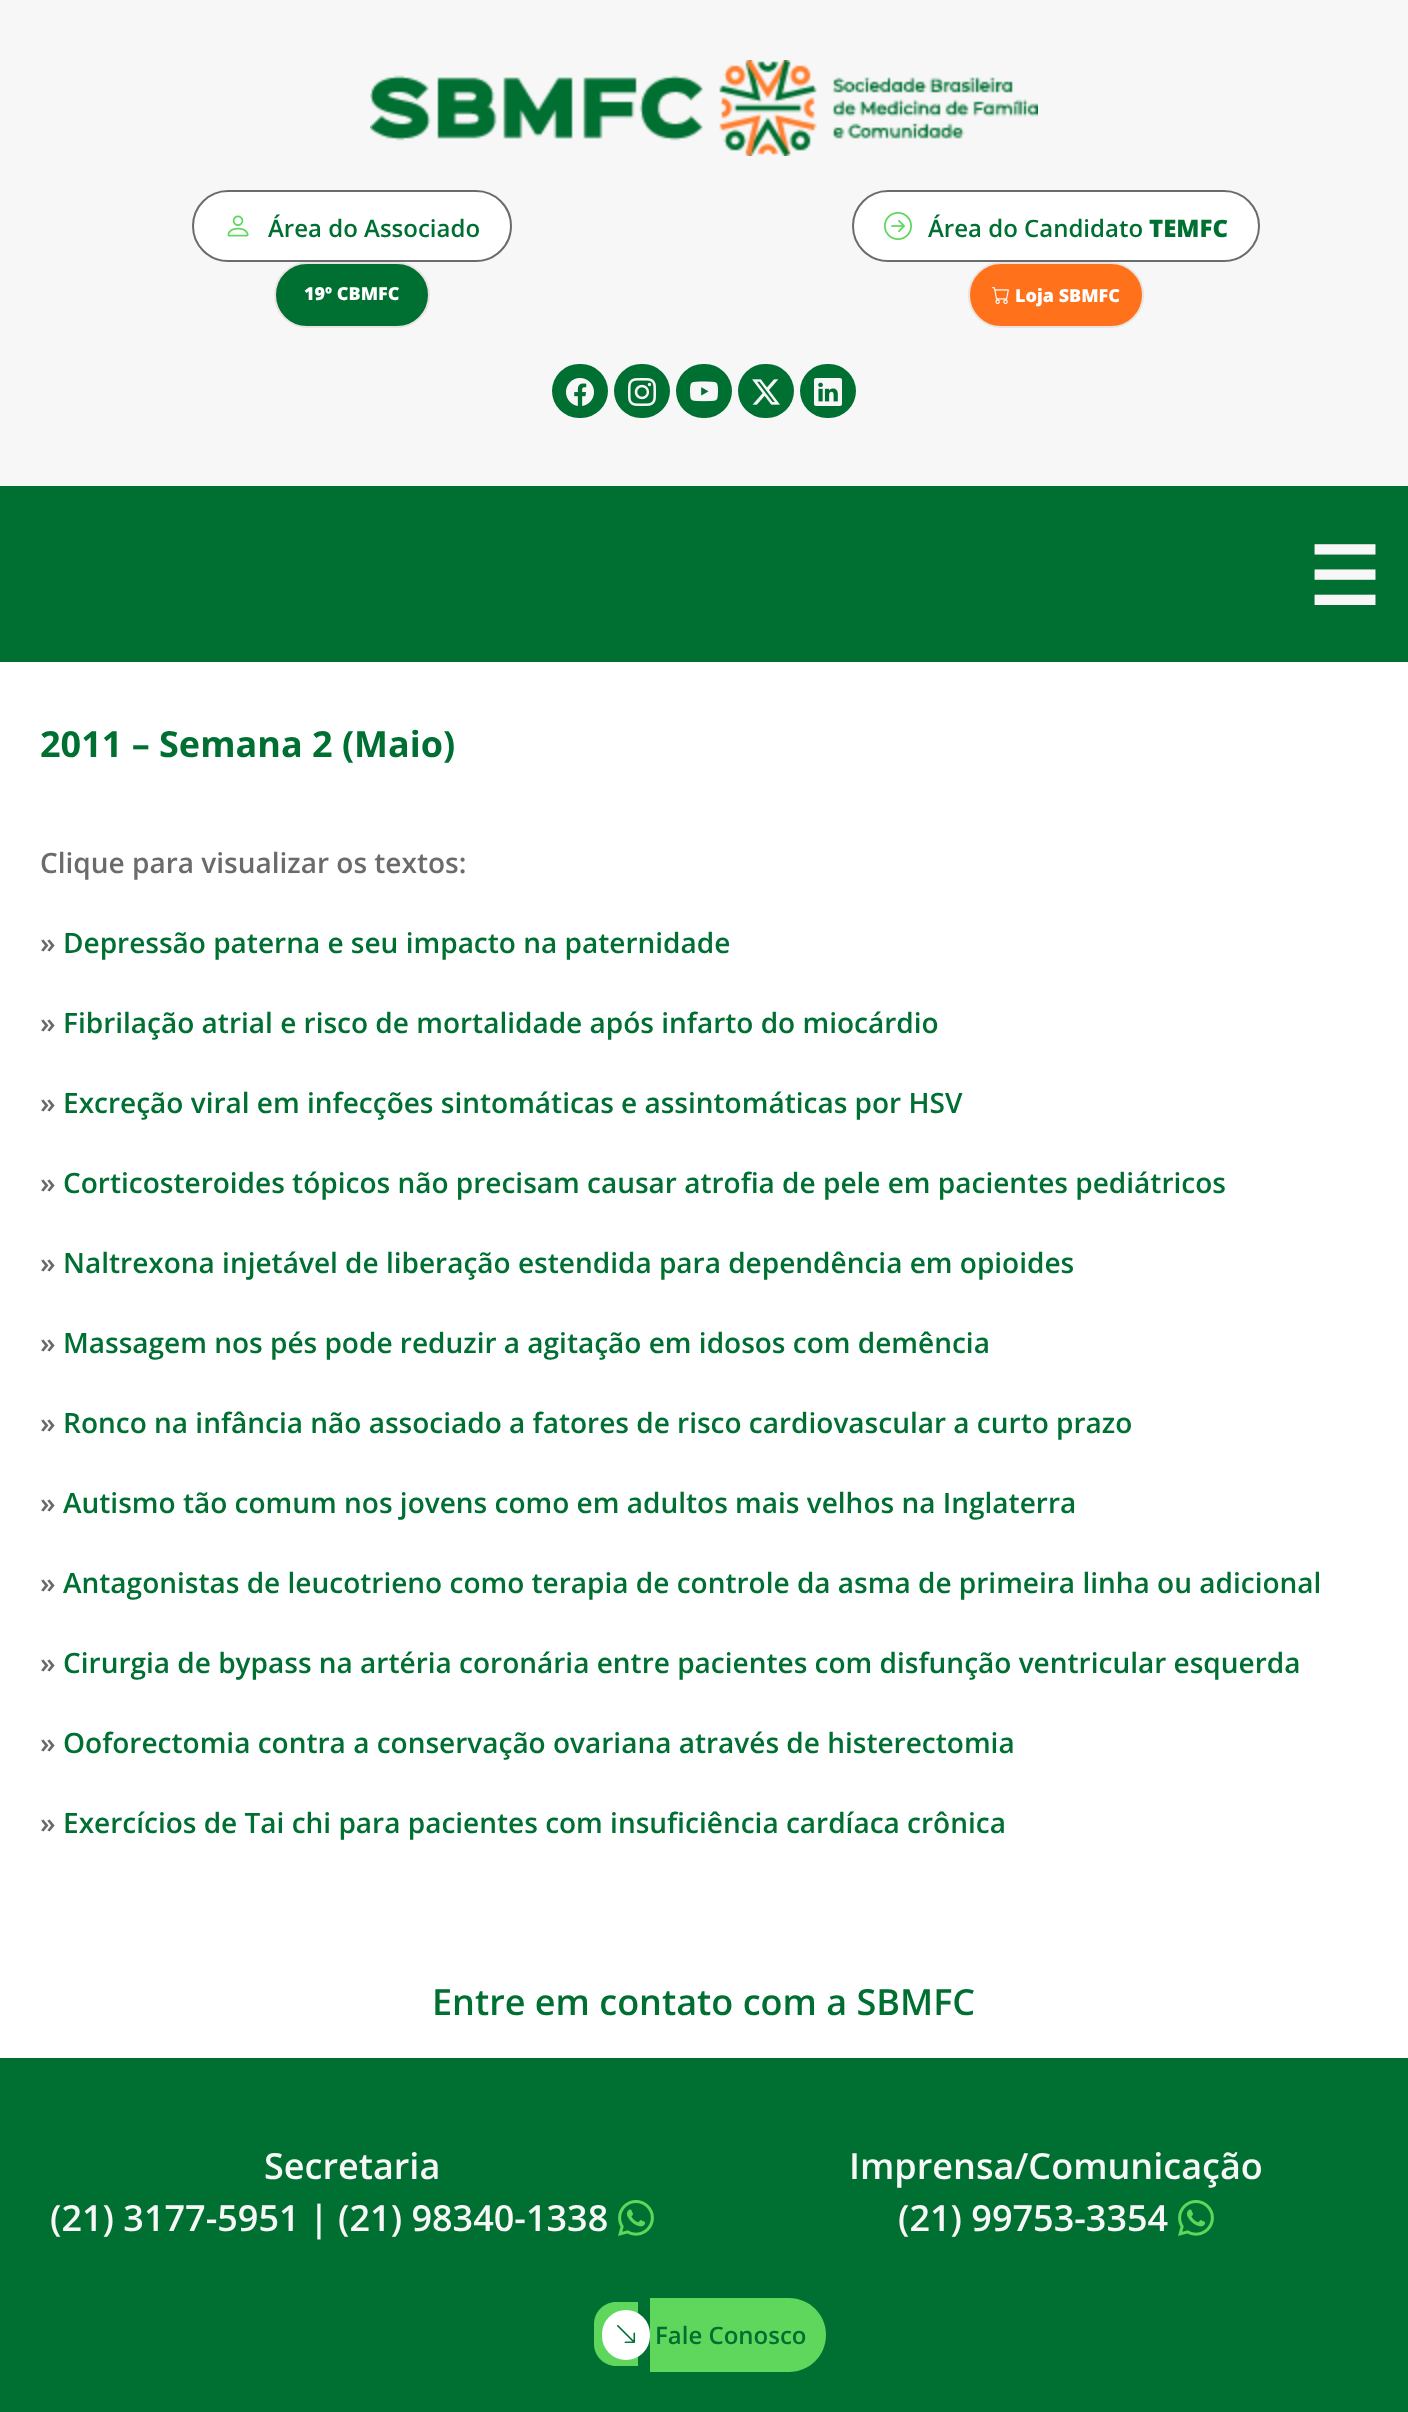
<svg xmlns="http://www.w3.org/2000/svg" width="1408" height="2412">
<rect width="100%" height="100%" fill="#fff"/>
<rect width="1408" height="486" fill="#f7f7f7"/>
<image x="370" y="60" width="668" height="96" href="media/1.png"/>
<rect x="193" y="191" width="318" height="70" rx="35" fill="#fff" stroke="#6b6b6b" stroke-width="2"/>
<image x="227" y="215" width="22" height="22" href="media/2.png"/>
<text x="268" y="237" style="font-family:Open Sans;font-size:24px;font-weight:600;fill:#006f32">Área do Associado</text>
<rect x="853" y="191" width="406" height="70" rx="35" fill="#fff" stroke="#6b6b6b" stroke-width="2"/>
<image x="884" y="212" width="28" height="28" href="media/3.png"/>
<text x="928" y="237" style="font-family:Open Sans;font-size:24px;font-weight:600;fill:#006f32">Área do Candidato</text>
<text x="1149" y="237" style="font-family:Open Sans;font-size:24px;font-weight:800;fill:#006f32">TEMFC</text>
<rect x="275" y="263" width="154" height="64" rx="32" fill="#006f32" stroke="#eae3e2" stroke-width="2"/>
<text x="304" y="300" style="font-family:Open Sans;font-size:18px;font-weight:800;fill:#fff">19º CBMFC</text>
<rect x="969" y="263" width="174" height="64" rx="32" fill="#ff711b" stroke="#eae3e2" stroke-width="2"/>
<image x="992" y="287" width="17" height="17" href="media/4.png"/>
<text x="1015" y="302" style="font-family:Open Sans;font-size:18px;font-weight:800;fill:#fff">Loja SBMFC</text>
<rect x="552" y="364" width="56" height="54" rx="27" fill="#006f32"/>
<image x="566" y="378" width="28" height="28" href="media/5.png"/>
<rect x="614" y="364" width="56" height="54" rx="27" fill="#006f32"/>
<image x="628" y="378" width="28" height="28" href="media/6.png"/>
<rect x="676" y="364" width="56" height="54" rx="27" fill="#006f32"/>
<image x="690" y="381" width="28" height="21" href="media/7.png"/>
<rect x="738" y="364" width="56" height="54" rx="27" fill="#006f32"/>
<image x="752" y="379" width="28" height="26" href="media/8.png"/>
<rect x="800" y="364" width="56" height="54" rx="27" fill="#006f32"/>
<image x="814" y="378" width="28" height="28" href="media/9.png"/>
<rect y="486" width="1408" height="176" fill="#006f32"/>
<text x="1308" y="605" style="font-family:DejaVu Sans;font-size:80px;font-weight:bold;fill:#f7f7f7">☰</text>
<text x="40" y="757" style="font-family:Open Sans;font-size:36px;font-weight:bold;fill:#006f32">2011 – Semana 2 (Maio)</text>
<text x="40" y="873" style="font-family:Open Sans;font-size:28px;font-weight:600;fill:#6b6b6b">Clique para visualizar os textos:</text>
<text x="40" y="953" style="font-family:Open Sans;font-size:28px;font-weight:600;fill:#6b6b6b">»</text>
<text x="63" y="953" style="font-family:Open Sans;font-size:28px;font-weight:600;fill:#006f32">Depressão paterna e seu impacto na paternidade</text>
<text x="40" y="1033" style="font-family:Open Sans;font-size:28px;font-weight:600;fill:#6b6b6b">»</text>
<text x="63" y="1033" style="font-family:Open Sans;font-size:28px;font-weight:600;fill:#006f32">Fibrilação atrial e risco de mortalidade após infarto do miocárdio</text>
<text x="40" y="1113" style="font-family:Open Sans;font-size:28px;font-weight:600;fill:#6b6b6b">»</text>
<text x="63" y="1113" style="font-family:Open Sans;font-size:28px;font-weight:600;fill:#006f32">Excreção viral em infecções sintomáticas e assintomáticas por HSV</text>
<text x="40" y="1193" style="font-family:Open Sans;font-size:28px;font-weight:600;fill:#6b6b6b">»</text>
<text x="63" y="1193" style="font-family:Open Sans;font-size:28px;font-weight:600;fill:#006f32">Corticosteroides tópicos não precisam causar atrofia de pele em pacientes pediátricos</text>
<text x="40" y="1273" style="font-family:Open Sans;font-size:28px;font-weight:600;fill:#6b6b6b">»</text>
<text x="63" y="1273" style="font-family:Open Sans;font-size:28px;font-weight:600;fill:#006f32">Naltrexona injetável de liberação estendida para dependência em opioides</text>
<text x="40" y="1353" style="font-family:Open Sans;font-size:28px;font-weight:600;fill:#6b6b6b">»</text>
<text x="63" y="1353" style="font-family:Open Sans;font-size:28px;font-weight:600;fill:#006f32">Massagem nos pés pode reduzir a agitação em idosos com demência</text>
<text x="40" y="1433" style="font-family:Open Sans;font-size:28px;font-weight:600;fill:#6b6b6b">»</text>
<text x="63" y="1433" style="font-family:Open Sans;font-size:28px;font-weight:600;fill:#006f32">Ronco na infância não associado a fatores de risco cardiovascular a curto prazo</text>
<text x="40" y="1513" style="font-family:Open Sans;font-size:28px;font-weight:600;fill:#6b6b6b">»</text>
<text x="63" y="1513" style="font-family:Open Sans;font-size:28px;font-weight:600;fill:#006f32">Autismo tão comum nos jovens como em adultos mais velhos na Inglaterra</text>
<text x="40" y="1593" style="font-family:Open Sans;font-size:28px;font-weight:600;fill:#6b6b6b">»</text>
<text x="63" y="1593" style="font-family:Open Sans;font-size:28px;font-weight:600;fill:#006f32">Antagonistas de leucotrieno como terapia de controle da asma de primeira linha ou adicional</text>
<text x="40" y="1673" style="font-family:Open Sans;font-size:28px;font-weight:600;fill:#6b6b6b">»</text>
<text x="63" y="1673" style="font-family:Open Sans;font-size:28px;font-weight:600;fill:#006f32">Cirurgia de bypass na artéria coronária entre pacientes com disfunção ventricular esquerda</text>
<text x="40" y="1753" style="font-family:Open Sans;font-size:28px;font-weight:600;fill:#6b6b6b">»</text>
<text x="63" y="1753" style="font-family:Open Sans;font-size:28px;font-weight:600;fill:#006f32">Ooforectomia contra a conservação ovariana através de histerectomia</text>
<text x="40" y="1833" style="font-family:Open Sans;font-size:28px;font-weight:600;fill:#6b6b6b">»</text>
<text x="63" y="1833" style="font-family:Open Sans;font-size:28px;font-weight:600;fill:#006f32">Exercícios de Tai chi para pacientes com insuficiência cardíaca crônica</text>
<text x="432" y="2015" style="font-family:Open Sans;font-size:36px;font-weight:600;fill:#006f32">Entre em contato com a SBMFC</text>
<rect y="2058" width="1408" height="354" fill="#006f32"/>
<text x="264" y="2179" style="font-family:Open Sans;font-size:36px;font-weight:600;fill:#f7f7f7">Secretaria</text>
<text x="50" y="2231" style="font-family:Open Sans;font-size:36px;font-weight:600;fill:#f7f7f7">(21) 3177-5951 | (21) 98340-1338</text>
<image x="618" y="2200" width="36" height="36" href="media/10.png"/>
<text x="849" y="2179" style="font-family:Open Sans;font-size:36px;font-weight:600;fill:#f7f7f7">Imprensa/Comunicação</text>
<text x="898" y="2231" style="font-family:Open Sans;font-size:36px;font-weight:600;fill:#f7f7f7">(21) 99753-3354</text>
<image x="1178" y="2200" width="36" height="36" href="media/10.png"/>
<path d="M616 2302h22v64h-22c-12 0-22-10-22-22v-20c0-12 10-22 22-22z" fill="#5fd75d"/>
<path d="M650 2298h139c20.5 0 37 16.5 37 37c0 20.5-16.5 37-37 37h-139z" fill="#5fd75d"/>
<rect x="602" y="2310" width="48" height="50" rx="24" fill="#fff"/>
<image x="617" y="2325" width="19" height="18" href="media/11.png"/>
<text x="655" y="2344" style="font-family:Open Sans;font-size:24px;font-weight:600;fill:#006f32">Fale Conosco</text>
</svg>
